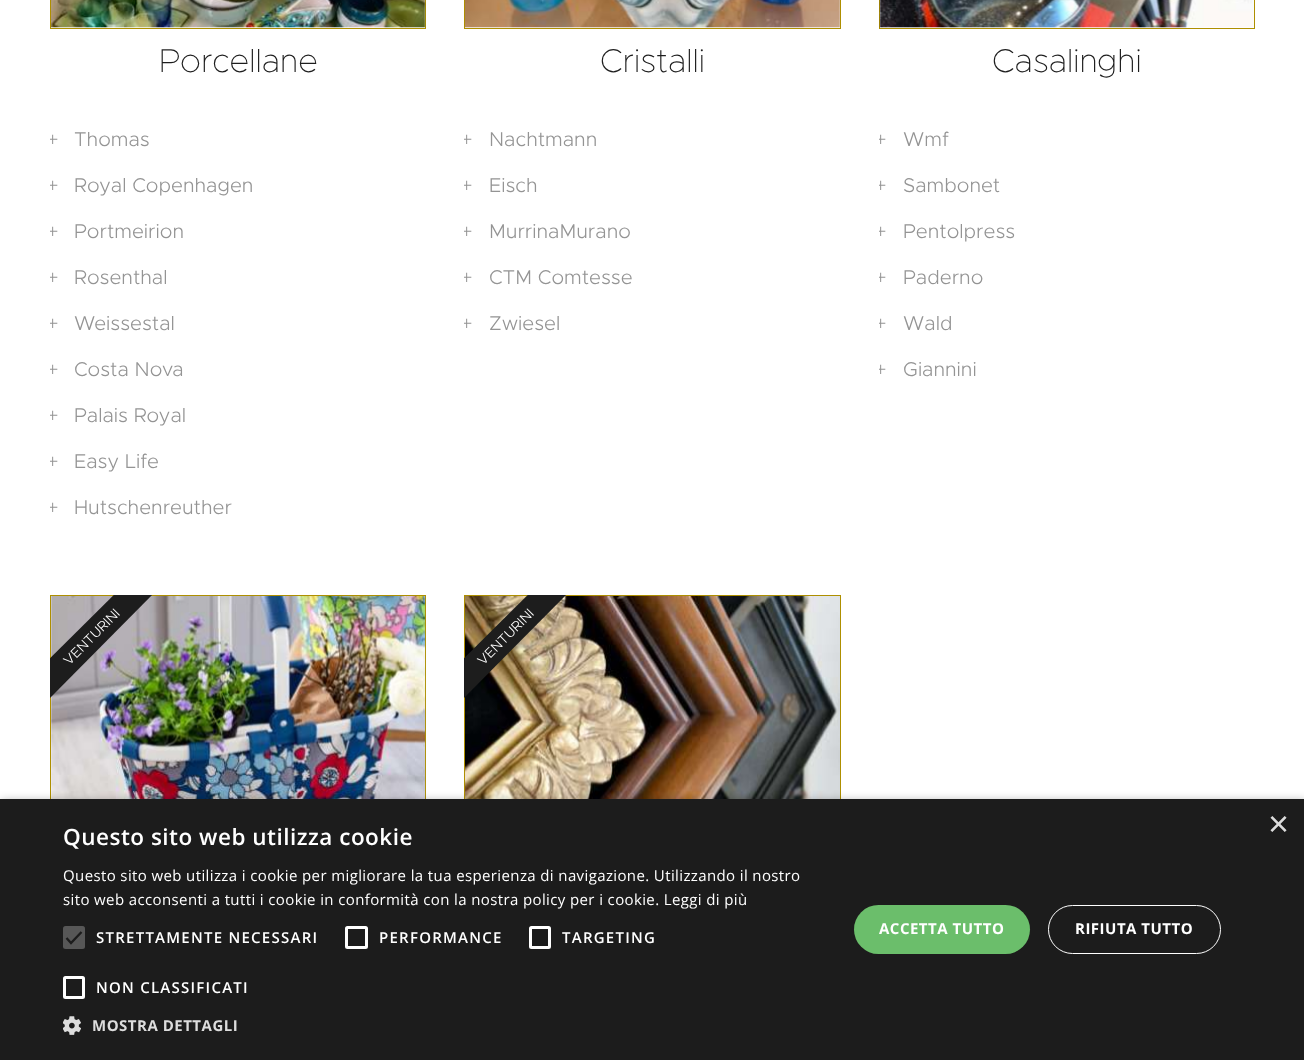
<svg xmlns="http://www.w3.org/2000/svg" width="1304" height="1060">
<defs>
<clipPath id="clip1"><rect x="50" width="376" height="558"/></clipPath>
<clipPath id="clip2"><rect x="464" width="377" height="558"/></clipPath>
<clipPath id="clip3"><rect x="879" width="376" height="558"/></clipPath>
<clipPath id="clip4"><rect x="50" y="595" width="376" height="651"/></clipPath>
<clipPath id="clip5"><rect x="464" y="595" width="377" height="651"/></clipPath>
</defs>
<rect width="100%" height="100%" fill="#fff"/>
<rect x="50.5" y="-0.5" width="375" height="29" fill="none" stroke="#ae8f00"/>
<image x="51" y="0" width="375" height="28" href="media/1.png"/>
<text x="159" y="72" style="font-family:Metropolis;font-size:33px;font-weight:100;fill:#1d1d1d">Porcellane</text>
<g clip-path="url(#clip1)">
<text x="47" y="146" style="font-family:Liberation Serif;font-size:20px;fill:#949494">+</text>
</g>
<text x="74" y="146" style="font-family:Metropolis;font-size:20px;font-weight:300;fill:#949494">Thomas</text>
<g clip-path="url(#clip1)">
<text x="47" y="192" style="font-family:Liberation Serif;font-size:20px;fill:#949494">+</text>
</g>
<text x="74" y="192" style="font-family:Metropolis;font-size:20px;font-weight:300;fill:#949494">Royal Copenhagen</text>
<g clip-path="url(#clip1)">
<text x="47" y="238" style="font-family:Liberation Serif;font-size:20px;fill:#949494">+</text>
</g>
<text x="74" y="238" style="font-family:Metropolis;font-size:20px;font-weight:300;fill:#949494">Portmeirion</text>
<g clip-path="url(#clip1)">
<text x="47" y="284" style="font-family:Liberation Serif;font-size:20px;fill:#949494">+</text>
</g>
<text x="74" y="284" style="font-family:Metropolis;font-size:20px;font-weight:300;fill:#949494">Rosenthal</text>
<g clip-path="url(#clip1)">
<text x="47" y="330" style="font-family:Liberation Serif;font-size:20px;fill:#949494">+</text>
</g>
<text x="74" y="330" style="font-family:Metropolis;font-size:20px;font-weight:300;fill:#949494">Weissestal</text>
<g clip-path="url(#clip1)">
<text x="47" y="376" style="font-family:Liberation Serif;font-size:20px;fill:#949494">+</text>
</g>
<text x="74" y="376" style="font-family:Metropolis;font-size:20px;font-weight:300;fill:#949494">Costa Nova</text>
<g clip-path="url(#clip1)">
<text x="47" y="422" style="font-family:Liberation Serif;font-size:20px;fill:#949494">+</text>
</g>
<text x="74" y="422" style="font-family:Metropolis;font-size:20px;font-weight:300;fill:#949494">Palais Royal</text>
<g clip-path="url(#clip1)">
<text x="47" y="468" style="font-family:Liberation Serif;font-size:20px;fill:#949494">+</text>
</g>
<text x="74" y="468" style="font-family:Metropolis;font-size:20px;font-weight:300;fill:#949494">Easy Life</text>
<g clip-path="url(#clip1)">
<text x="47" y="514" style="font-family:Liberation Serif;font-size:20px;fill:#949494">+</text>
</g>
<text x="74" y="514" style="font-family:Metropolis;font-size:20px;font-weight:300;fill:#949494">Hutschenreuther</text>
<rect x="464.5" y="-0.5" width="376" height="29" fill="none" stroke="#ae8f00"/>
<image x="465" y="0" width="375" height="28" href="media/2.png"/>
<text x="600" y="72" style="font-family:Metropolis;font-size:33px;font-weight:100;fill:#1d1d1d">Cristalli</text>
<g clip-path="url(#clip2)">
<text x="461" y="146" style="font-family:Liberation Serif;font-size:20px;fill:#949494">+</text>
</g>
<text x="489" y="146" style="font-family:Metropolis;font-size:20px;font-weight:300;fill:#949494">Nachtmann</text>
<g clip-path="url(#clip2)">
<text x="461" y="192" style="font-family:Liberation Serif;font-size:20px;fill:#949494">+</text>
</g>
<text x="489" y="192" style="font-family:Metropolis;font-size:20px;font-weight:300;fill:#949494">Eisch</text>
<g clip-path="url(#clip2)">
<text x="461" y="238" style="font-family:Liberation Serif;font-size:20px;fill:#949494">+</text>
</g>
<text x="489" y="238" style="font-family:Metropolis;font-size:20px;font-weight:300;fill:#949494">MurrinaMurano</text>
<g clip-path="url(#clip2)">
<text x="461" y="284" style="font-family:Liberation Serif;font-size:20px;fill:#949494">+</text>
</g>
<text x="489" y="284" style="font-family:Metropolis;font-size:20px;font-weight:300;fill:#949494">CTM Comtesse</text>
<g clip-path="url(#clip2)">
<text x="461" y="330" style="font-family:Liberation Serif;font-size:20px;fill:#949494">+</text>
</g>
<text x="489" y="330" style="font-family:Metropolis;font-size:20px;font-weight:300;fill:#949494">Zwiesel</text>
<rect x="879.5" y="-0.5" width="375" height="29" fill="none" stroke="#ae8f00"/>
<image x="879" y="0" width="375" height="28" href="media/3.png"/>
<text x="992" y="72" style="font-family:Metropolis;font-size:33px;font-weight:100;fill:#1d1d1d">Casalinghi</text>
<g clip-path="url(#clip3)">
<text x="875" y="146" style="font-family:Liberation Serif;font-size:20px;fill:#949494">+</text>
</g>
<text x="903" y="146" style="font-family:Metropolis;font-size:20px;font-weight:300;fill:#949494">Wmf</text>
<g clip-path="url(#clip3)">
<text x="875" y="192" style="font-family:Liberation Serif;font-size:20px;fill:#949494">+</text>
</g>
<text x="903" y="192" style="font-family:Metropolis;font-size:20px;font-weight:300;fill:#949494">Sambonet</text>
<g clip-path="url(#clip3)">
<text x="875" y="238" style="font-family:Liberation Serif;font-size:20px;fill:#949494">+</text>
</g>
<text x="903" y="238" style="font-family:Metropolis;font-size:20px;font-weight:300;fill:#949494">Pentolpress</text>
<g clip-path="url(#clip3)">
<text x="875" y="284" style="font-family:Liberation Serif;font-size:20px;fill:#949494">+</text>
</g>
<text x="903" y="284" style="font-family:Metropolis;font-size:20px;font-weight:300;fill:#949494">Paderno</text>
<g clip-path="url(#clip3)">
<text x="875" y="330" style="font-family:Liberation Serif;font-size:20px;fill:#949494">+</text>
</g>
<text x="903" y="330" style="font-family:Metropolis;font-size:20px;font-weight:300;fill:#949494">Wald</text>
<g clip-path="url(#clip3)">
<text x="875" y="376" style="font-family:Liberation Serif;font-size:20px;fill:#949494">+</text>
</g>
<text x="903" y="376" style="font-family:Metropolis;font-size:20px;font-weight:300;fill:#949494">Giannini</text>
<rect x="50.5" y="595.5" width="375" height="213" fill="none" stroke="#ae8f00"/>
<image x="51" y="596" width="375" height="203" href="media/4.png"/>
<g clip-path="url(#clip4)">
<path d="M23 685l117-116l19 19l-116 117z" fill="#1d1d1d"/>
</g>
<text x="69" y="666" transform="rotate(-45 69 666)" style="font-family:Metropolis;font-size:13.75px;font-weight:300;fill:#fff">VENTURINI</text>
<rect x="464.5" y="595.5" width="376" height="213" fill="none" stroke="#ae8f00"/>
<image x="465" y="596" width="375" height="203" href="media/5.png"/>
<g clip-path="url(#clip5)">
<path d="M437 685l117-116l19 19l-116 117z" fill="#1d1d1d"/>
</g>
<text x="483" y="666" transform="rotate(-45 483 666)" style="font-family:Metropolis;font-size:13.75px;font-weight:300;fill:#fff">VENTURINI</text>
<rect x="1" y="801" width="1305" height="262" fill="#00000059" filter="blur(5px)"/>
<rect y="799" width="1304" height="261" fill="#1c1c1c"/>
<text x="1268" y="836" style="font-family:Liberation Sans;font-size:36px;fill:#ddd">×</text>
<text x="63" y="845" style="font-family:Open Sans;font-size:22.5px;font-weight:600;letter-spacing:0.5px;fill:#fff">Questo sito web utilizza cookie</text>
<text x="63" y="881" style="font-family:Open Sans;font-size:15px;letter-spacing:0.38px;fill:#fff">Questo sito web utilizza i cookie per migliorare la tua esperienza di navigazione. Utilizzando il nostro</text>
<text x="63" y="905" style="font-family:Open Sans;font-size:15px;letter-spacing:0.38px;fill:#fff">sito web acconsenti a tutti i cookie in conformità con la nostra policy per i cookie. Leggi di più</text>
<rect x="63" y="926" width="22" height="23" rx="2.5" fill="#575757"/>
<path d="M66.5 938l4.5 5l10.5-11" fill="none" stroke="#1c1c1c" stroke-width="2.3"/>
<text x="96" y="943" style="font-family:Open Sans;font-size:15px;font-weight:600;letter-spacing:1.25px;fill:#fff">STRETTAMENTE NECESSARI</text>
<rect x="346.5" y="927.5" width="20" height="20" rx="1" fill="none" stroke="#fff" stroke-width="3"/>
<text x="379" y="943" style="font-family:Open Sans;font-size:15px;font-weight:600;letter-spacing:1.25px;fill:#fff">PERFORMANCE</text>
<rect x="530.5" y="927.5" width="19" height="20" rx="1" fill="none" stroke="#fff" stroke-width="3"/>
<text x="562" y="943" style="font-family:Open Sans;font-size:15px;font-weight:600;letter-spacing:1.25px;fill:#fff">TARGETING</text>
<rect x="64.5" y="977.5" width="19" height="20" rx="1" fill="none" stroke="#fff" stroke-width="3"/>
<text x="96" y="993" style="font-family:Open Sans;font-size:15px;font-weight:600;letter-spacing:1.25px;fill:#fff">NON CLASSIFICATI</text>
<image x="63" y="1016" width="18" height="19" href="media/6.png"/>
<text x="92" y="1031" style="font-family:Open Sans;font-size:15px;font-weight:bold;letter-spacing:0.5px;fill:#ddd">MOSTRA DETTAGLI</text>
<rect x="854" y="905" width="176" height="49" rx="24.5" fill="#6bbe6b"/>
<text x="879" y="934" style="font-family:Open Sans;font-size:15px;font-weight:bold;letter-spacing:0.5px;fill:#fff">ACCETTA TUTTO</text>
<rect x="1048.5" y="905.5" width="172" height="48" rx="24" fill="none" stroke="#fff"/>
<text x="1075" y="934" style="font-family:Open Sans;font-size:15px;font-weight:bold;letter-spacing:0.5px;fill:#fff">RIFIUTA TUTTO</text>
</svg>
